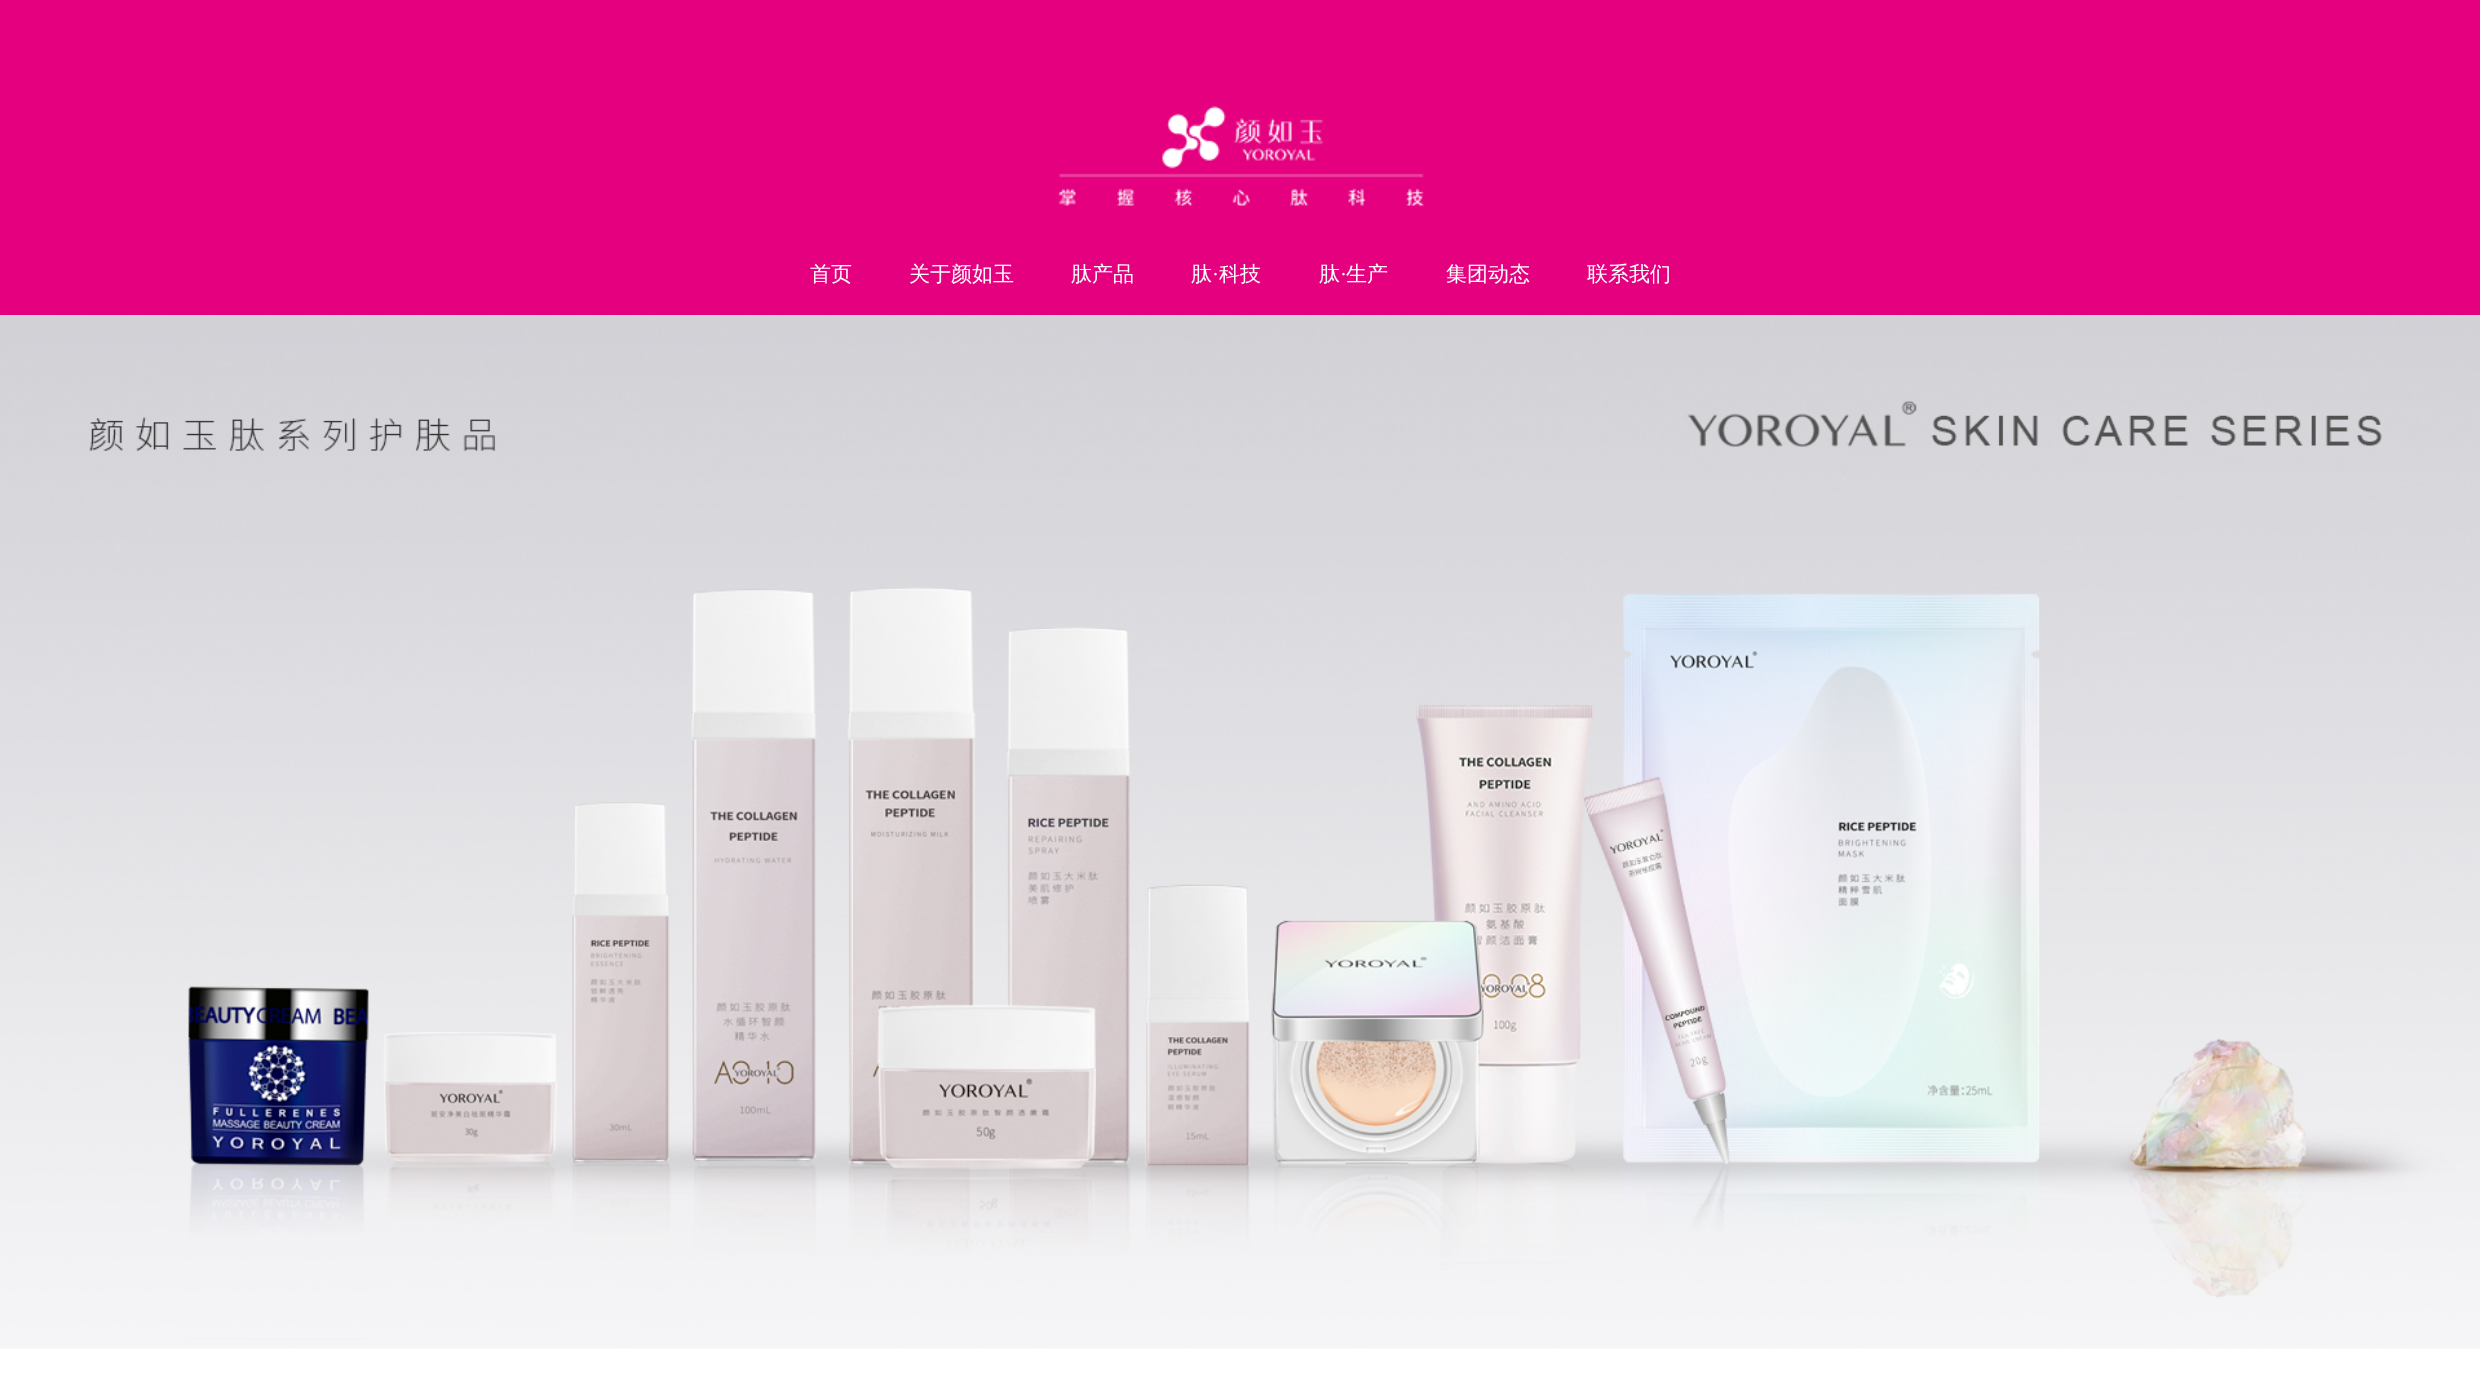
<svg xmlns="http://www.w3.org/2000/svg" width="2480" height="1376">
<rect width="100%" height="100%" fill="#fff"/>
<rect width="2480" height="315" fill="#e4007f"/>
<image x="1058" y="106" width="366" height="100" href="media/1.png"/>
<text x="810" y="281" style="font-family:WenQuanYi Zen Hei;font-size:21px;font-weight:500;fill:#fff">首页</text>
<text x="909" y="281" style="font-family:WenQuanYi Zen Hei;font-size:21px;font-weight:500;fill:#fff">关于颜如玉</text>
<text x="1071" y="281" style="font-family:WenQuanYi Zen Hei;font-size:21px;font-weight:500;fill:#fff">肽产品</text>
<text x="1191" y="281" style="font-family:WenQuanYi Zen Hei;font-size:21px;font-weight:500;fill:#fff">肽</text>
<text x="1212" y="281" style="font-family:Liberation Serif;font-size:21px;fill:#fff">·</text>
<text x="1219" y="281" style="font-family:WenQuanYi Zen Hei;font-size:21px;font-weight:500;fill:#fff">科技</text>
<text x="1319" y="281" style="font-family:WenQuanYi Zen Hei;font-size:21px;font-weight:500;fill:#fff">肽</text>
<text x="1340" y="281" style="font-family:Liberation Serif;font-size:21px;fill:#fff">·</text>
<text x="1346" y="281" style="font-family:WenQuanYi Zen Hei;font-size:21px;font-weight:500;fill:#fff">生产</text>
<text x="1446" y="281" style="font-family:WenQuanYi Zen Hei;font-size:21px;font-weight:500;fill:#fff">集团动态</text>
<text x="1587" y="281" style="font-family:WenQuanYi Zen Hei;font-size:21px;font-weight:500;fill:#fff">联系我们</text>
<image x="0" y="315" width="2480" height="1034" href="media/2.png"/>
</svg>
